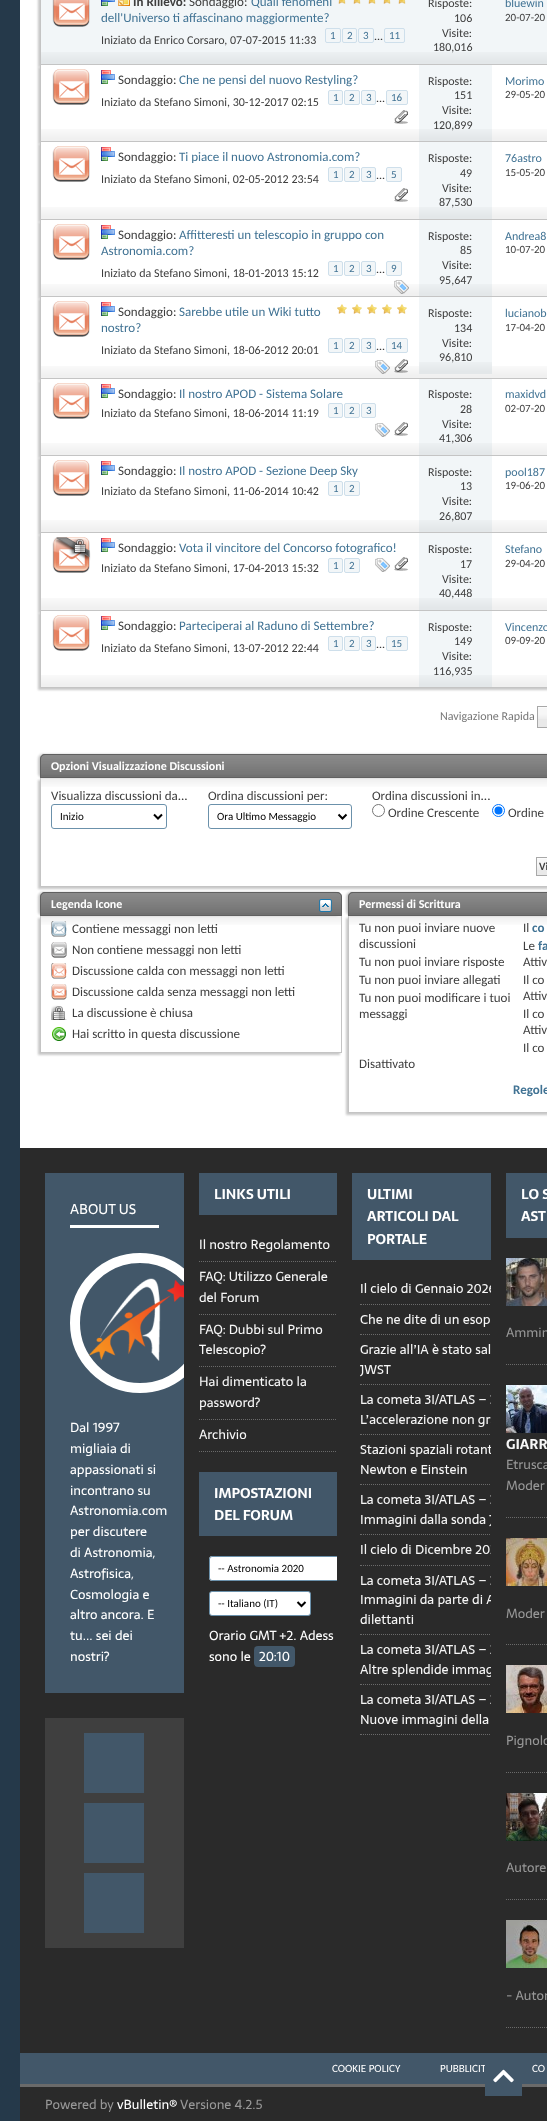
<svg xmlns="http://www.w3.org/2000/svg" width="547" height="2121">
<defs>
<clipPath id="clip1"><path d="M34 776h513v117h-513zm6 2h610v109h-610z" clip-rule="evenodd"/></clipPath>
<clipPath id="clip2"><path d="M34 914h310v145h-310zm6 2h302v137h-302z" clip-rule="evenodd"/></clipPath>
<clipPath id="clip3"><path d="M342 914h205v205h-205zm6 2h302v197h-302z" clip-rule="evenodd"/></clipPath>
<clipPath id="clip4"><rect x="45" y="1173" width="139" height="520"/></clipPath>
<clipPath id="clip5"><rect x="199" y="1173" width="138" height="495"/></clipPath>
</defs>
<rect width="100%" height="100%" fill="#25394a"/>
<rect x="20" width="527" height="1148" fill="#fff"/>
<rect x="38" y="-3" width="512" height="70" fill="#c8c8c8" filter="blur(1px)"/>
<rect x="41" width="506" height="64" fill="#f2f6f8"/>
<image x="41" y="52" width="506" height="12" href="media/1.png"/>
<rect x="40" y="64" width="507" height="1" fill="#c4c4c4"/>
<rect x="40" width="1" height="65" fill="#c4c4c4"/>
<image x="52" y="0" width="38" height="27" href="media/2.png"/>
<image x="338" y="0" width="68" height="4" href="media/3.png"/>
<image x="101" y="0" width="14" height="6" href="media/4.png"/>
<image x="118" y="0" width="12" height="6" href="media/5.png"/>
<text x="133" y="6" style="font-family:Carlito;font-size:13px;font-weight:bold;fill:#3e3e3e">In Rilievo:</text>
<text x="189" y="6" style="font-family:Carlito;font-size:13px;fill:#3e3e3e">Sondaggio:</text>
<text x="251" y="6" style="font-family:Carlito;font-size:13px;fill:#417394">Quali fenomeni</text>
<text x="101" y="22" style="font-family:Carlito;font-size:13px;fill:#417394">dell'Universo ti affascinano maggiormente?</text>
<text x="101" y="44" style="font-family:Carlito;font-size:12px;fill:#3e3e3e">Iniziato da Enrico Corsaro, 07-07-2015 11:33</text>
<rect x="325.5" y="28.5" width="15" height="14" rx="1.5" fill="none" stroke="#cedfeb"/>
<text x="330" y="39" style="font-family:Carlito;font-size:11px;fill:#417394">1</text>
<rect x="342.5" y="28.5" width="14" height="14" rx="1.5" fill="none" stroke="#cedfeb"/>
<text x="347" y="39" style="font-family:Carlito;font-size:11px;fill:#417394">2</text>
<rect x="358.5" y="28.5" width="15" height="14" rx="1.5" fill="none" stroke="#cedfeb"/>
<text x="363" y="39" style="font-family:Carlito;font-size:11px;fill:#417394">3</text>
<rect x="384.5" y="28.5" width="20" height="14" rx="1.5" fill="none" stroke="#cedfeb"/>
<text x="389" y="39" style="font-family:Carlito;font-size:11px;fill:#417394">11</text>
<text x="374" y="40" style="font-family:Carlito;font-size:12px;fill:#3e3e3e">...</text>
<rect x="419" y="52" width="73" height="12" fill="#f2f6f8"/>
<image x="419" y="52" width="73" height="12" href="media/6.png"/>
<text x="428" y="7" style="font-family:Carlito;font-size:12px;fill:#3e3e3e">Risposte:</text>
<text x="454" y="22" style="font-family:Carlito;font-size:12px;fill:#3e3e3e">106</text>
<text x="442" y="37" style="font-family:Carlito;font-size:12px;fill:#3e3e3e">Visite:</text>
<text x="433" y="51" style="font-family:Carlito;font-size:12px;fill:#3e3e3e">180,016</text>
<text x="505" y="7" style="font-family:Carlito;font-size:12px;fill:#417394">bluewin</text>
<text x="505" y="21" style="font-family:Carlito;font-size:11px;fill:#3e3e3e">20-07-20</text>
<rect x="38" y="67" width="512" height="77" fill="#c8c8c8" filter="blur(1px)"/>
<rect x="41" y="65" width="506" height="76" fill="#fff"/>
<image x="41" y="129" width="506" height="12" href="media/7.png"/>
<rect x="40" y="141" width="507" height="1" fill="#c4c4c4"/>
<rect x="40" y="65" width="1" height="77" fill="#c4c4c4"/>
<image x="52" y="69" width="38" height="36" href="media/8.png"/>
<image x="101" y="70" width="14" height="14" href="media/9.png"/>
<text x="118" y="84" style="font-family:Carlito;font-size:13px;fill:#3e3e3e">Sondaggio:</text>
<text x="179" y="84" style="font-family:Carlito;font-size:13px;fill:#417394">Che ne pensi del nuovo Restyling?</text>
<text x="101" y="106" style="font-family:Carlito;font-size:12px;fill:#3e3e3e">Iniziato da Stefano Simoni, 30-12-2017 02:15</text>
<rect x="328.5" y="90.5" width="14" height="14" rx="1.5" fill="#f2f6f8" stroke="#cedfeb"/>
<text x="333" y="101" style="font-family:Carlito;font-size:11px;fill:#417394">1</text>
<rect x="344.5" y="90.5" width="15" height="14" rx="1.5" fill="#f2f6f8" stroke="#cedfeb"/>
<text x="349" y="101" style="font-family:Carlito;font-size:11px;fill:#417394">2</text>
<rect x="361.5" y="90.5" width="14" height="14" rx="1.5" fill="#f2f6f8" stroke="#cedfeb"/>
<text x="366" y="101" style="font-family:Carlito;font-size:11px;fill:#417394">3</text>
<text x="376" y="102" style="font-family:Carlito;font-size:12px;fill:#3e3e3e">...</text>
<rect x="386.5" y="90.5" width="21" height="14" rx="1.5" fill="#f2f6f8" stroke="#cedfeb"/>
<text x="391" y="101" style="font-family:Carlito;font-size:11px;fill:#417394">16</text>
<image x="394" y="110" width="14" height="14" href="media/10.png"/>
<rect x="419" y="65" width="73" height="76" fill="#f2f6f8"/>
<image x="419" y="129" width="73" height="12" href="media/6.png"/>
<text x="428" y="85" style="font-family:Carlito;font-size:12px;fill:#3e3e3e">Risposte:</text>
<text x="454" y="99" style="font-family:Carlito;font-size:12px;fill:#3e3e3e">151</text>
<text x="442" y="114" style="font-family:Carlito;font-size:12px;fill:#3e3e3e">Visite:</text>
<text x="433" y="129" style="font-family:Carlito;font-size:12px;fill:#3e3e3e">120,899</text>
<text x="505" y="85" style="font-family:Carlito;font-size:12px;fill:#417394">Morimo</text>
<text x="505" y="98" style="font-family:Carlito;font-size:11px;fill:#3e3e3e">29-05-20</text>
<rect x="38" y="144" width="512" height="78" fill="#c8c8c8" filter="blur(1px)"/>
<rect x="41" y="142" width="506" height="77" fill="#fff"/>
<image x="41" y="207" width="506" height="12" href="media/7.png"/>
<rect x="40" y="219" width="507" height="1" fill="#c4c4c4"/>
<rect x="40" y="142" width="1" height="78" fill="#c4c4c4"/>
<image x="52" y="146" width="38" height="36" href="media/8.png"/>
<image x="101" y="147" width="14" height="14" href="media/9.png"/>
<text x="118" y="161" style="font-family:Carlito;font-size:13px;fill:#3e3e3e">Sondaggio:</text>
<text x="179" y="161" style="font-family:Carlito;font-size:13px;fill:#417394">Ti piace il nuovo Astronomia.com?</text>
<text x="101" y="183" style="font-family:Carlito;font-size:12px;fill:#3e3e3e">Iniziato da Stefano Simoni, 02-05-2012 23:54</text>
<rect x="328.5" y="167.5" width="14" height="14" rx="1.5" fill="#f2f6f8" stroke="#cedfeb"/>
<text x="333" y="178" style="font-family:Carlito;font-size:11px;fill:#417394">1</text>
<rect x="344.5" y="167.5" width="15" height="14" rx="1.5" fill="#f2f6f8" stroke="#cedfeb"/>
<text x="349" y="178" style="font-family:Carlito;font-size:11px;fill:#417394">2</text>
<rect x="361.5" y="167.5" width="14" height="14" rx="1.5" fill="#f2f6f8" stroke="#cedfeb"/>
<text x="366" y="178" style="font-family:Carlito;font-size:11px;fill:#417394">3</text>
<text x="376" y="179" style="font-family:Carlito;font-size:12px;fill:#3e3e3e">...</text>
<rect x="386.5" y="167.5" width="15" height="14" rx="1.5" fill="#f2f6f8" stroke="#cedfeb"/>
<text x="391" y="178" style="font-family:Carlito;font-size:11px;fill:#417394">5</text>
<image x="394" y="188" width="14" height="14" href="media/10.png"/>
<rect x="419" y="142" width="73" height="77" fill="#f2f6f8"/>
<image x="419" y="207" width="73" height="12" href="media/6.png"/>
<text x="428" y="162" style="font-family:Carlito;font-size:12px;fill:#3e3e3e">Risposte:</text>
<text x="460" y="177" style="font-family:Carlito;font-size:12px;fill:#3e3e3e">49</text>
<text x="442" y="192" style="font-family:Carlito;font-size:12px;fill:#3e3e3e">Visite:</text>
<text x="439" y="206" style="font-family:Carlito;font-size:12px;fill:#3e3e3e">87,530</text>
<text x="505" y="162" style="font-family:Carlito;font-size:12px;fill:#417394">76astro</text>
<text x="505" y="176" style="font-family:Carlito;font-size:11px;fill:#3e3e3e">15-05-20</text>
<rect x="38" y="222" width="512" height="77" fill="#c8c8c8" filter="blur(1px)"/>
<rect x="41" y="220" width="506" height="76" fill="#fff"/>
<image x="41" y="284" width="506" height="12" href="media/7.png"/>
<rect x="40" y="296" width="507" height="1" fill="#c4c4c4"/>
<rect x="40" y="220" width="1" height="77" fill="#c4c4c4"/>
<image x="52" y="224" width="38" height="36" href="media/8.png"/>
<image x="101" y="225" width="14" height="14" href="media/9.png"/>
<text x="118" y="239" style="font-family:Carlito;font-size:13px;fill:#3e3e3e">Sondaggio:</text>
<text x="179" y="239" style="font-family:Carlito;font-size:13px;fill:#417394">Affitteresti un telescopio in gruppo con</text>
<text x="101" y="255" style="font-family:Carlito;font-size:13px;fill:#417394">Astronomia.com?</text>
<text x="101" y="277" style="font-family:Carlito;font-size:12px;fill:#3e3e3e">Iniziato da Stefano Simoni, 18-01-2013 15:12</text>
<rect x="328.5" y="261.5" width="14" height="14" rx="1.5" fill="#f2f6f8" stroke="#cedfeb"/>
<text x="333" y="272" style="font-family:Carlito;font-size:11px;fill:#417394">1</text>
<rect x="344.5" y="261.5" width="15" height="14" rx="1.5" fill="#f2f6f8" stroke="#cedfeb"/>
<text x="349" y="272" style="font-family:Carlito;font-size:11px;fill:#417394">2</text>
<rect x="361.5" y="261.5" width="14" height="14" rx="1.5" fill="#f2f6f8" stroke="#cedfeb"/>
<text x="366" y="272" style="font-family:Carlito;font-size:11px;fill:#417394">3</text>
<rect x="386.5" y="261.5" width="15" height="14" rx="1.5" fill="#f2f6f8" stroke="#cedfeb"/>
<text x="391" y="272" style="font-family:Carlito;font-size:11px;fill:#417394">9</text>
<text x="376" y="273" style="font-family:Carlito;font-size:12px;fill:#3e3e3e">...</text>
<image x="394" y="280" width="15" height="14" href="media/11.png"/>
<rect x="419" y="220" width="73" height="76" fill="#f2f6f8"/>
<image x="419" y="284" width="73" height="12" href="media/6.png"/>
<text x="428" y="240" style="font-family:Carlito;font-size:12px;fill:#3e3e3e">Risposte:</text>
<text x="460" y="254" style="font-family:Carlito;font-size:12px;fill:#3e3e3e">85</text>
<text x="442" y="269" style="font-family:Carlito;font-size:12px;fill:#3e3e3e">Visite:</text>
<text x="439" y="284" style="font-family:Carlito;font-size:12px;fill:#3e3e3e">95,647</text>
<text x="505" y="240" style="font-family:Carlito;font-size:12px;fill:#417394">Andrea8</text>
<text x="505" y="253" style="font-family:Carlito;font-size:11px;fill:#3e3e3e">10-07-20</text>
<rect x="38" y="299" width="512" height="82" fill="#c8c8c8" filter="blur(1px)"/>
<rect x="41" y="297" width="506" height="81" fill="#fff"/>
<image x="41" y="366" width="506" height="12" href="media/7.png"/>
<rect x="40" y="378" width="507" height="1" fill="#c4c4c4"/>
<rect x="40" y="297" width="1" height="82" fill="#c4c4c4"/>
<image x="52" y="301" width="38" height="36" href="media/8.png"/>
<image x="337" y="304" width="70" height="10" href="media/12.png"/>
<image x="101" y="302" width="14" height="14" href="media/9.png"/>
<text x="118" y="316" style="font-family:Carlito;font-size:13px;fill:#3e3e3e">Sondaggio:</text>
<text x="179" y="316" style="font-family:Carlito;font-size:13px;fill:#417394">Sarebbe utile un Wiki tutto</text>
<text x="101" y="332" style="font-family:Carlito;font-size:13px;fill:#417394">nostro?</text>
<text x="101" y="354" style="font-family:Carlito;font-size:12px;fill:#3e3e3e">Iniziato da Stefano Simoni, 18-06-2012 20:01</text>
<rect x="328.5" y="338.5" width="14" height="14" rx="1.5" fill="#f2f6f8" stroke="#cedfeb"/>
<text x="333" y="349" style="font-family:Carlito;font-size:11px;fill:#417394">1</text>
<rect x="344.5" y="338.5" width="15" height="14" rx="1.5" fill="#f2f6f8" stroke="#cedfeb"/>
<text x="349" y="349" style="font-family:Carlito;font-size:11px;fill:#417394">2</text>
<rect x="361.5" y="338.5" width="14" height="14" rx="1.5" fill="#f2f6f8" stroke="#cedfeb"/>
<text x="366" y="349" style="font-family:Carlito;font-size:11px;fill:#417394">3</text>
<rect x="386.5" y="338.5" width="21" height="14" rx="1.5" fill="#f2f6f8" stroke="#cedfeb"/>
<text x="391" y="349" style="font-family:Carlito;font-size:11px;fill:#417394">14</text>
<text x="376" y="350" style="font-family:Carlito;font-size:12px;fill:#3e3e3e">...</text>
<image x="375" y="360" width="15" height="14" href="media/13.png"/>
<image x="394" y="359" width="14" height="14" href="media/14.png"/>
<rect x="419" y="297" width="73" height="77" fill="#f2f6f8"/>
<image x="419" y="362" width="73" height="12" href="media/6.png"/>
<text x="428" y="317" style="font-family:Carlito;font-size:12px;fill:#3e3e3e">Risposte:</text>
<text x="454" y="332" style="font-family:Carlito;font-size:12px;fill:#3e3e3e">134</text>
<text x="442" y="347" style="font-family:Carlito;font-size:12px;fill:#3e3e3e">Visite:</text>
<text x="439" y="361" style="font-family:Carlito;font-size:12px;fill:#3e3e3e">96,810</text>
<text x="505" y="317" style="font-family:Carlito;font-size:12px;fill:#417394">lucianob</text>
<text x="505" y="331" style="font-family:Carlito;font-size:11px;fill:#3e3e3e">17-04-20</text>
<rect x="38" y="381" width="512" height="77" fill="#c8c8c8" filter="blur(1px)"/>
<rect x="41" y="379" width="506" height="76" fill="#fff"/>
<image x="41" y="443" width="506" height="12" href="media/7.png"/>
<rect x="40" y="455" width="507" height="1" fill="#c4c4c4"/>
<rect x="40" y="379" width="1" height="77" fill="#c4c4c4"/>
<image x="52" y="383" width="38" height="36" href="media/8.png"/>
<image x="101" y="384" width="14" height="14" href="media/9.png"/>
<text x="118" y="398" style="font-family:Carlito;font-size:13px;fill:#3e3e3e">Sondaggio:</text>
<text x="179" y="398" style="font-family:Carlito;font-size:13px;fill:#417394">Il nostro APOD - Sistema Solare</text>
<text x="101" y="417" style="font-family:Carlito;font-size:12px;fill:#3e3e3e">Iniziato da Stefano Simoni, 18-06-2014 11:19</text>
<rect x="328.5" y="403.5" width="14" height="14" rx="1.5" fill="#f2f6f8" stroke="#cedfeb"/>
<text x="333" y="414" style="font-family:Carlito;font-size:11px;fill:#417394">1</text>
<rect x="344.5" y="403.5" width="15" height="14" rx="1.5" fill="#f2f6f8" stroke="#cedfeb"/>
<text x="349" y="414" style="font-family:Carlito;font-size:11px;fill:#417394">2</text>
<rect x="361.5" y="403.5" width="14" height="14" rx="1.5" fill="#f2f6f8" stroke="#cedfeb"/>
<text x="366" y="414" style="font-family:Carlito;font-size:11px;fill:#417394">3</text>
<image x="375" y="423" width="15" height="14" href="media/15.png"/>
<image x="394" y="422" width="14" height="14" href="media/10.png"/>
<rect x="419" y="379" width="73" height="76" fill="#f2f6f8"/>
<image x="419" y="443" width="73" height="12" href="media/6.png"/>
<text x="428" y="398" style="font-family:Carlito;font-size:12px;fill:#3e3e3e">Risposte:</text>
<text x="460" y="413" style="font-family:Carlito;font-size:12px;fill:#3e3e3e">28</text>
<text x="442" y="428" style="font-family:Carlito;font-size:12px;fill:#3e3e3e">Visite:</text>
<text x="439" y="442" style="font-family:Carlito;font-size:12px;fill:#3e3e3e">41,306</text>
<text x="505" y="398" style="font-family:Carlito;font-size:12px;fill:#417394">maxidvd</text>
<text x="505" y="412" style="font-family:Carlito;font-size:11px;fill:#3e3e3e">02-07-20</text>
<rect x="38" y="458" width="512" height="77" fill="#c8c8c8" filter="blur(1px)"/>
<rect x="41" y="456" width="506" height="76" fill="#fff"/>
<image x="41" y="520" width="506" height="12" href="media/7.png"/>
<rect x="40" y="532" width="507" height="1" fill="#c4c4c4"/>
<rect x="40" y="456" width="1" height="77" fill="#c4c4c4"/>
<image x="52" y="460" width="38" height="36" href="media/8.png"/>
<image x="101" y="461" width="14" height="14" href="media/9.png"/>
<text x="118" y="475" style="font-family:Carlito;font-size:13px;fill:#3e3e3e">Sondaggio:</text>
<text x="179" y="475" style="font-family:Carlito;font-size:13px;fill:#417394">Il nostro APOD - Sezione Deep Sky</text>
<text x="101" y="495" style="font-family:Carlito;font-size:12px;fill:#3e3e3e">Iniziato da Stefano Simoni, 11-06-2014 10:42</text>
<rect x="328.5" y="481.5" width="14" height="14" rx="1.5" fill="#f2f6f8" stroke="#cedfeb"/>
<text x="333" y="492" style="font-family:Carlito;font-size:11px;fill:#417394">1</text>
<rect x="344.5" y="481.5" width="15" height="14" rx="1.5" fill="#f2f6f8" stroke="#cedfeb"/>
<text x="349" y="492" style="font-family:Carlito;font-size:11px;fill:#417394">2</text>
<rect x="419" y="456" width="73" height="76" fill="#f2f6f8"/>
<image x="419" y="520" width="73" height="12" href="media/6.png"/>
<text x="428" y="476" style="font-family:Carlito;font-size:12px;fill:#3e3e3e">Risposte:</text>
<text x="460" y="490" style="font-family:Carlito;font-size:12px;fill:#3e3e3e">13</text>
<text x="442" y="505" style="font-family:Carlito;font-size:12px;fill:#3e3e3e">Visite:</text>
<text x="439" y="520" style="font-family:Carlito;font-size:12px;fill:#3e3e3e">26,807</text>
<text x="505" y="476" style="font-family:Carlito;font-size:12px;fill:#417394">pool187</text>
<text x="505" y="489" style="font-family:Carlito;font-size:11px;fill:#3e3e3e">19-06-20</text>
<rect x="38" y="535" width="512" height="78" fill="#c8c8c8" filter="blur(1px)"/>
<rect x="41" y="533" width="506" height="77" fill="#fff"/>
<image x="41" y="598" width="506" height="12" href="media/7.png"/>
<rect x="40" y="610" width="507" height="1" fill="#c4c4c4"/>
<rect x="40" y="533" width="1" height="78" fill="#c4c4c4"/>
<image x="52" y="537" width="39" height="36" href="media/16.png"/>
<image x="101" y="538" width="14" height="14" href="media/9.png"/>
<text x="118" y="552" style="font-family:Carlito;font-size:13px;fill:#3e3e3e">Sondaggio:</text>
<text x="179" y="552" style="font-family:Carlito;font-size:13px;fill:#417394">Vota il vincitore del Concorso fotografico!</text>
<text x="101" y="572" style="font-family:Carlito;font-size:12px;fill:#3e3e3e">Iniziato da Stefano Simoni, 17-04-2013 15:32</text>
<rect x="328.5" y="558.5" width="14" height="14" rx="1.5" fill="#f2f6f8" stroke="#cedfeb"/>
<text x="333" y="569" style="font-family:Carlito;font-size:11px;fill:#417394">1</text>
<rect x="344.5" y="558.5" width="15" height="14" rx="1.5" fill="#f2f6f8" stroke="#cedfeb"/>
<text x="349" y="569" style="font-family:Carlito;font-size:11px;fill:#417394">2</text>
<image x="375" y="558" width="15" height="14" href="media/15.png"/>
<image x="394" y="557" width="14" height="14" href="media/10.png"/>
<rect x="419" y="533" width="73" height="77" fill="#f2f6f8"/>
<image x="419" y="598" width="73" height="12" href="media/6.png"/>
<text x="428" y="553" style="font-family:Carlito;font-size:12px;fill:#3e3e3e">Risposte:</text>
<text x="460" y="568" style="font-family:Carlito;font-size:12px;fill:#3e3e3e">17</text>
<text x="442" y="583" style="font-family:Carlito;font-size:12px;fill:#3e3e3e">Visite:</text>
<text x="439" y="597" style="font-family:Carlito;font-size:12px;fill:#3e3e3e">40,448</text>
<text x="505" y="553" style="font-family:Carlito;font-size:12px;fill:#417394">Stefano</text>
<text x="505" y="567" style="font-family:Carlito;font-size:11px;fill:#3e3e3e">29-04-20</text>
<rect x="38" y="613" width="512" height="77" fill="#c8c8c8" filter="blur(1px)"/>
<rect x="41" y="611" width="506" height="76" fill="#fff"/>
<image x="41" y="675" width="506" height="12" href="media/7.png"/>
<rect x="40" y="687" width="507" height="1" fill="#c4c4c4"/>
<rect x="40" y="611" width="1" height="77" fill="#c4c4c4"/>
<image x="52" y="615" width="38" height="36" href="media/8.png"/>
<image x="101" y="616" width="14" height="14" href="media/9.png"/>
<text x="118" y="630" style="font-family:Carlito;font-size:13px;fill:#3e3e3e">Sondaggio:</text>
<text x="179" y="630" style="font-family:Carlito;font-size:13px;fill:#417394">Parteciperai al Raduno di Settembre?</text>
<text x="101" y="652" style="font-family:Carlito;font-size:12px;fill:#3e3e3e">Iniziato da Stefano Simoni, 13-07-2012 22:44</text>
<rect x="328.5" y="636.5" width="14" height="14" rx="1.5" fill="#f2f6f8" stroke="#cedfeb"/>
<text x="333" y="647" style="font-family:Carlito;font-size:11px;fill:#417394">1</text>
<rect x="344.5" y="636.5" width="15" height="14" rx="1.5" fill="#f2f6f8" stroke="#cedfeb"/>
<text x="349" y="647" style="font-family:Carlito;font-size:11px;fill:#417394">2</text>
<rect x="361.5" y="636.5" width="14" height="14" rx="1.5" fill="#f2f6f8" stroke="#cedfeb"/>
<text x="366" y="647" style="font-family:Carlito;font-size:11px;fill:#417394">3</text>
<text x="376" y="648" style="font-family:Carlito;font-size:12px;fill:#3e3e3e">...</text>
<rect x="386.5" y="636.5" width="21" height="14" rx="1.5" fill="#f2f6f8" stroke="#cedfeb"/>
<text x="391" y="647" style="font-family:Carlito;font-size:11px;fill:#417394">15</text>
<rect x="419" y="611" width="73" height="76" fill="#f2f6f8"/>
<image x="419" y="675" width="73" height="12" href="media/6.png"/>
<text x="428" y="631" style="font-family:Carlito;font-size:12px;fill:#3e3e3e">Risposte:</text>
<text x="454" y="645" style="font-family:Carlito;font-size:12px;fill:#3e3e3e">149</text>
<text x="442" y="660" style="font-family:Carlito;font-size:12px;fill:#3e3e3e">Visite:</text>
<text x="433" y="675" style="font-family:Carlito;font-size:12px;fill:#3e3e3e">116,935</text>
<text x="505" y="631" style="font-family:Carlito;font-size:12px;fill:#417394">Vincenzo</text>
<text x="505" y="644" style="font-family:Carlito;font-size:11px;fill:#3e3e3e">09-09-20</text>
<rect x="538" y="707" width="9" height="20" fill="#e9e9e9"/>
<image x="538" y="707" width="9" height="12" href="media/17.png"/>
<rect x="537.5" y="706.5" width="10" height="21" fill="none" stroke="#a8a8a8"/>
<text x="440" y="720" style="font-family:Carlito;font-size:12px;fill:#777">Navigazione Rapida</text>
<g clip-path="url(#clip1)">
<rect x="38" y="780" width="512" height="109" fill="#c8c8c8" filter="blur(1px)"/>
</g>
<image x="41" y="778" width="506" height="9" href="media/19.png"/>
<rect x="40" y="886" width="507" height="1" fill="#c4c4c4"/>
<rect x="40" y="778" width="1" height="109" fill="#c4c4c4"/>
<rect x="38" y="754" width="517" height="24" rx="5" fill="#c8c8c8" filter="blur(1px)"/>
<path d="M45 754h502c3 0 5 2 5 5v19h-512v-19c0-3 2-5 5-5z" fill="#707070"/>
<image x="40" y="755" width="507" height="20" href="media/18.png"/>
<path d="M45 754.5h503c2.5 0 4.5 2 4.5 4.5v18.5h-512v-18.5c0-2.5 2-4.5 4.5-4.5z" fill="none" stroke="#606060"/>
<text x="51" y="770" style="font-family:Carlito;font-size:12px;font-weight:bold;fill:#fff">Opzioni Visualizzazione Discussioni</text>
<text x="51" y="800" style="font-family:Carlito;font-size:13px;fill:#3e3e3e">Visualizza discussioni da...</text>
<rect x="51.5" y="804.5" width="115" height="24" rx="2.5" fill="none" stroke="#6b91ab"/>
<path d="M154 814.5l4 4l4-4" fill="none" stroke="#000" stroke-width="2"/>
<text x="60" y="820" style="font-family:Carlito;font-size:11px;fill:#000">Inizio</text>
<text x="208" y="800" style="font-family:Carlito;font-size:13px;fill:#3e3e3e">Ordina discussioni per:</text>
<rect x="208.5" y="804.5" width="143" height="24" rx="2.5" fill="none" stroke="#6b91ab"/>
<path d="M338.5 814.5l4 4l4-4" fill="none" stroke="#000" stroke-width="2"/>
<text x="217" y="820" style="font-family:Carlito;font-size:11px;fill:#000">Ora Ultimo Messaggio</text>
<text x="372" y="800" style="font-family:Carlito;font-size:13px;fill:#3e3e3e">Ordina discussioni in...</text>
<circle cx="378.5" cy="810.5" r="6" fill="none" stroke="#767676"/>
<text x="388" y="817" style="font-family:Carlito;font-size:13px;fill:#3e3e3e">Ordine Crescente</text>
<circle cx="498.5" cy="810.5" r="6" fill="none" stroke="#0075ff"/>
<circle cx="498.5" cy="810.5" r="4" fill="#0075ff"/>
<text x="508" y="817" style="font-family:Carlito;font-size:13px;fill:#3e3e3e">Ordine</text>
<rect x="537" y="858" width="10" height="17" fill="#e9e9e9"/>
<image x="537" y="858" width="10" height="12" href="media/20.png"/>
<rect x="536.5" y="857.5" width="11" height="18" fill="none" stroke="#a8a8a8"/>
<text x="539" y="870" style="font-family:Carlito;font-size:11px;font-weight:bold;fill:#3e3e3e">Vi</text>
<g clip-path="url(#clip2)">
<rect x="38" y="918" width="302" height="137" fill="#c8c8c8" filter="blur(1px)"/>
</g>
<image x="41" y="916" width="300" height="9" href="media/23.png"/>
<rect x="341" y="916" width="1" height="137" fill="#c4c4c4"/>
<rect x="40" y="1052" width="302" height="1" fill="#c4c4c4"/>
<rect x="40" y="916" width="1" height="137" fill="#c4c4c4"/>
<rect x="38" y="892" width="302" height="24" rx="5" fill="#c8c8c8" filter="blur(1px)"/>
<path d="M45 892h292c3 0 5 2 5 5v19h-302v-19c0-3 2-5 5-5z" fill="#707070"/>
<image x="40" y="893" width="302" height="20" href="media/21.png"/>
<path d="M45 892.5h292c2.5 0 4.5 2 4.5 4.5v18.5h-301v-18.5c0-2.5 2-4.5 4.5-4.5z" fill="none" stroke="#606060"/>
<text x="51" y="908" style="font-family:Carlito;font-size:12px;font-weight:bold;fill:#fff">Legenda Icone</text>
<image x="319" y="899" width="13" height="13" href="media/22.png"/>
<image x="51" y="921" width="16" height="16" href="media/24.png"/>
<text x="72" y="933" style="font-family:Carlito;font-size:13px;fill:#3e3e3e">Contiene messaggi non letti</text>
<image x="51" y="942" width="16" height="16" href="media/25.png"/>
<text x="72" y="954" style="font-family:Carlito;font-size:13px;fill:#3e3e3e">Non contiene messaggi non letti</text>
<image x="51" y="963" width="16" height="16" href="media/26.png"/>
<text x="72" y="975" style="font-family:Carlito;font-size:13px;fill:#3e3e3e">Discussione calda con messaggi non letti</text>
<image x="51" y="984" width="16" height="16" href="media/27.png"/>
<text x="72" y="996" style="font-family:Carlito;font-size:13px;fill:#3e3e3e">Discussione calda senza messaggi non letti</text>
<image x="51" y="1005" width="16" height="15" href="media/28.png"/>
<text x="72" y="1017" style="font-family:Carlito;font-size:13px;fill:#3e3e3e">La discussione è chiusa</text>
<image x="52" y="1027" width="14" height="14" href="media/29.png"/>
<text x="72" y="1038" style="font-family:Carlito;font-size:13px;fill:#3e3e3e">Hai scritto in questa discussione</text>
<g clip-path="url(#clip3)">
<rect x="346" y="918" width="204" height="197" fill="#c8c8c8" filter="blur(1px)"/>
</g>
<image x="349" y="916" width="198" height="9" href="media/31.png"/>
<rect x="348" y="1112" width="199" height="1" fill="#c4c4c4"/>
<rect x="348" y="916" width="1" height="197" fill="#c4c4c4"/>
<rect x="346" y="892" width="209" height="24" rx="5" fill="#c8c8c8" filter="blur(1px)"/>
<path d="M353 892h194c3 0 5 2 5 5v19h-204v-19c0-3 2-5 5-5z" fill="#707070"/>
<image x="348" y="893" width="199" height="20" href="media/30.png"/>
<path d="M353 892.5h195c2.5 0 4.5 2 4.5 4.5v18.5h-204v-18.5c0-2.5 2-4.5 4.5-4.5z" fill="none" stroke="#606060"/>
<text x="359" y="908" style="font-family:Carlito;font-size:12px;font-weight:bold;fill:#fff">Permessi di Scrittura</text>
<text x="523" y="932" style="font-family:Carlito;font-size:13px;fill:#3e3e3e">Il</text>
<text x="532" y="932" style="font-family:Carlito;font-size:13px;font-weight:bold;fill:#417394">co</text>
<text x="523" y="950" style="font-family:Carlito;font-size:13px;fill:#3e3e3e">Le</text>
<text x="538" y="950" style="font-family:Carlito;font-size:13px;font-weight:bold;fill:#417394">fa</text>
<text x="523" y="966" style="font-family:Carlito;font-size:13px;fill:#3e3e3e">Attiv</text>
<text x="523" y="984" style="font-family:Carlito;font-size:13px;fill:#3e3e3e">Il co</text>
<text x="523" y="1000" style="font-family:Carlito;font-size:13px;fill:#3e3e3e">Attiv</text>
<text x="523" y="1018" style="font-family:Carlito;font-size:13px;fill:#3e3e3e">Il co</text>
<text x="523" y="1034" style="font-family:Carlito;font-size:13px;fill:#3e3e3e">Attiv</text>
<text x="523" y="1052" style="font-family:Carlito;font-size:13px;fill:#3e3e3e">Il co</text>
<text x="359" y="1068" style="font-family:Carlito;font-size:13px;fill:#3e3e3e">Disattivato</text>
<text x="359" y="932" style="font-family:Carlito;font-size:13px;fill:#3e3e3e">Tu non puoi inviare nuove</text>
<text x="359" y="948" style="font-family:Carlito;font-size:13px;fill:#3e3e3e">discussioni</text>
<text x="359" y="966" style="font-family:Carlito;font-size:13px;fill:#3e3e3e">Tu non puoi inviare risposte</text>
<text x="359" y="984" style="font-family:Carlito;font-size:13px;fill:#3e3e3e">Tu non puoi inviare allegati</text>
<text x="359" y="1002" style="font-family:Carlito;font-size:13px;fill:#3e3e3e">Tu non puoi modificare i tuoi</text>
<text x="359" y="1018" style="font-family:Carlito;font-size:13px;fill:#3e3e3e">messaggi</text>
<text x="513" y="1094" style="font-family:Carlito;font-size:13px;font-weight:bold;fill:#417394">Regole</text>
<rect x="20" y="1148" width="527" height="905" fill="#2a2a2a"/>
<rect x="45" y="1173" width="139" height="520" fill="#425769"/>
<rect x="70" y="1225" width="89" height="3" fill="#fff"/>
<text x="70" y="1214" style="font-family:Sarala;font-size:14px;fill:#fff">ABOUT US</text>
<g clip-path="url(#clip4)">
<circle cx="140" cy="1323" r="65" fill="none" stroke="#fff" stroke-width="10"/>
</g>
<image x="89" y="1278" width="95" height="83" href="media/32.png"/>
<text x="70" y="1432" style="font-family:Sarala;font-size:13px;fill:#fff">Dal 1997</text>
<text x="70" y="1453" style="font-family:Sarala;font-size:13px;fill:#fff">migliaia di</text>
<text x="70" y="1474" style="font-family:Sarala;font-size:13px;fill:#fff">appassionati si</text>
<text x="70" y="1495" style="font-family:Sarala;font-size:13px;fill:#fff">incontrano su</text>
<text x="70" y="1515" style="font-family:Sarala;font-size:13px;fill:#fff">Astronomia.com</text>
<text x="70" y="1536" style="font-family:Sarala;font-size:13px;fill:#fff">per discutere</text>
<text x="70" y="1557" style="font-family:Sarala;font-size:13px;fill:#fff">di Astronomia,</text>
<text x="70" y="1578" style="font-family:Sarala;font-size:13px;fill:#fff">Astrofisica,</text>
<text x="70" y="1599" style="font-family:Sarala;font-size:13px;fill:#fff">Cosmologia e</text>
<text x="70" y="1619" style="font-family:Sarala;font-size:13px;fill:#fff">altro ancora. E</text>
<text x="70" y="1640" style="font-family:Sarala;font-size:13px;fill:#fff">tu... sei dei</text>
<text x="70" y="1661" style="font-family:Sarala;font-size:13px;fill:#fff">nostri?</text>
<rect x="45" y="1718" width="139" height="230" fill="#3f3f3f"/>
<rect x="84" y="1733" width="60" height="60" fill="#425769"/>
<rect x="84" y="1803" width="60" height="60" fill="#425769"/>
<rect x="84" y="1873" width="60" height="60" fill="#425769"/>
<rect x="199" y="1173" width="138" height="42" fill="#425769"/>
<text x="214" y="1199" style="font-family:Sarala;font-size:14px;font-weight:bold;fill:#fff">LINKS UTILI</text>
<path d="M199 1261.5h138" fill="none" stroke="#6a6a6a" stroke-dasharray="1 1"/>
<text x="199" y="1249" style="font-family:Sarala;font-size:13px;fill:#f7f7f7">Il nostro Regolamento</text>
<path d="M199 1314.5h138" fill="none" stroke="#6a6a6a" stroke-dasharray="1 1"/>
<text x="199" y="1281" style="font-family:Sarala;font-size:13px;fill:#f7f7f7">FAQ: Utilizzo Generale</text>
<text x="199" y="1302" style="font-family:Sarala;font-size:13px;fill:#f7f7f7">del Forum</text>
<path d="M199 1366.5h138" fill="none" stroke="#6a6a6a" stroke-dasharray="1 1"/>
<text x="199" y="1334" style="font-family:Sarala;font-size:13px;fill:#f7f7f7">FAQ: Dubbi sul Primo</text>
<text x="199" y="1354" style="font-family:Sarala;font-size:13px;fill:#f7f7f7">Telescopio?</text>
<path d="M199 1419.5h138" fill="none" stroke="#6a6a6a" stroke-dasharray="1 1"/>
<text x="199" y="1386" style="font-family:Sarala;font-size:13px;fill:#f7f7f7">Hai dimenticato la</text>
<text x="199" y="1407" style="font-family:Sarala;font-size:13px;fill:#f7f7f7">password?</text>
<path d="M199 1451.5h138" fill="none" stroke="#6a6a6a" stroke-dasharray="1 1"/>
<text x="199" y="1439" style="font-family:Sarala;font-size:13px;fill:#f7f7f7">Archivio</text>
<rect x="199" y="1472" width="138" height="64" fill="#425769"/>
<text x="214" y="1498" style="font-family:Sarala;font-size:14px;font-weight:bold;fill:#fff">IMPOSTAZIONI</text>
<text x="214" y="1520" style="font-family:Sarala;font-size:14px;font-weight:bold;fill:#fff">DEL FORUM</text>
<path d="M212 1556h125v25h-125c-1.5 0-3-1.5-3-3v-19c0-1.5 1.5-3 3-3z" fill="#fff"/>
<g clip-path="url(#clip5)">
<rect x="209.5" y="1556.5" width="155" height="24" rx="2.5" fill="none" stroke="#6b91ab"/>
</g>
<text x="218" y="1572" style="font-family:Carlito;font-size:11px;fill:#000">-- Astronomia 2020</text>
<rect x="209.5" y="1591.5" width="101" height="24" rx="2.5" fill="#fff" stroke="#6b91ab"/>
<path d="M297.5 1602l4 4l4-4" fill="none" stroke="#000" stroke-width="2"/>
<text x="218" y="1607" style="font-family:Carlito;font-size:11px;fill:#000">-- Italiano (IT)</text>
<text x="209" y="1640" style="font-family:Sarala;font-size:13px;fill:#fff">Orario GMT +2. Adess</text>
<text x="209" y="1661" style="font-family:Sarala;font-size:13px;fill:#fff">sono le</text>
<rect x="254" y="1646" width="41" height="21" rx="4" fill="#425769"/>
<text x="259" y="1661" style="font-family:Sarala;font-size:13px;fill:#fff">20:10</text>
<rect x="352" y="1173" width="139" height="87" fill="#425769"/>
<text x="367" y="1199" style="font-family:Sarala;font-size:14px;font-weight:bold;fill:#fff">ULTIMI</text>
<text x="367" y="1221" style="font-family:Sarala;font-size:14px;font-weight:bold;fill:#fff">ARTICOLI DAL</text>
<text x="367" y="1244" style="font-family:Sarala;font-size:14px;font-weight:bold;fill:#fff">PORTALE</text>
<image x="360" y="1283" width="131" height="452" href="media/33.png"/>
<rect x="506" y="1173" width="41" height="65" fill="#425769"/>
<text x="521" y="1199" style="font-family:Sarala;font-size:14px;font-weight:bold;fill:#fff">LO S</text>
<text x="521" y="1221" style="font-family:Sarala;font-size:14px;font-weight:bold;fill:#fff">AST</text>
<path d="M506 1364.5h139" fill="none" stroke="#6a6a6a" stroke-dasharray="1 1"/>
<image x="506" y="1258" width="41" height="48" href="media/34.png"/>
<text x="506" y="1337" style="font-family:Sarala;font-size:13px;fill:#979797">Ammin</text>
<path d="M506 1517.5h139" fill="none" stroke="#6a6a6a" stroke-dasharray="1 1"/>
<image x="506" y="1385" width="41" height="48" href="media/35.png"/>
<text x="506" y="1449" style="font-family:Sarala;font-size:14px;font-weight:bold;fill:#f7f7f7">GIARR</text>
<text x="506" y="1469" style="font-family:Sarala;font-size:13px;fill:#979797">Etrusca</text>
<text x="506" y="1490" style="font-family:Sarala;font-size:13px;fill:#979797">Moder</text>
<path d="M506 1644.5h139" fill="none" stroke="#6a6a6a" stroke-dasharray="1 1"/>
<image x="506" y="1538" width="41" height="48" href="media/36.png"/>
<text x="506" y="1618" style="font-family:Sarala;font-size:13px;fill:#979797">Moder</text>
<path d="M506 1772.5h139" fill="none" stroke="#6a6a6a" stroke-dasharray="1 1"/>
<image x="506" y="1665" width="41" height="48" href="media/37.png"/>
<text x="506" y="1745" style="font-family:Sarala;font-size:13px;fill:#979797">Pignolo</text>
<path d="M506 1899.5h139" fill="none" stroke="#6a6a6a" stroke-dasharray="1 1"/>
<image x="506" y="1793" width="41" height="48" href="media/38.png"/>
<text x="506" y="1872" style="font-family:Sarala;font-size:13px;fill:#979797">Autore</text>
<path d="M506 2027.5h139" fill="none" stroke="#6a6a6a" stroke-dasharray="1 1"/>
<image x="506" y="1920" width="41" height="48" href="media/39.png"/>
<text x="506" y="2000" style="font-family:Sarala;font-size:13px;fill:#979797">- Autor</text>
<rect x="20" y="2053" width="527" height="31" fill="#425769"/>
<text x="332" y="2072" style="font-family:Carlito;font-size:11px;fill:#fff">COOKIE POLICY</text>
<text x="440" y="2072" style="font-family:Carlito;font-size:11px;fill:#fff">PUBBLICIT</text>
<text x="532" y="2072" style="font-family:Carlito;font-size:11px;fill:#fff">CO</text>
<rect x="20" y="2087" width="527" height="34" fill="#2a2a2a"/>
<rect x="20" y="2084" width="527" height="3" fill="#6a6a6a"/>
<rect x="485" y="2064" width="37" height="32" fill="#425769"/>
<image x="493" y="2069" width="21" height="14" href="media/40.png"/>
<text x="45" y="2109" style="font-family:Sarala;font-size:13px;fill:#979797">Powered by</text>
<text x="117" y="2109" style="font-family:Sarala;font-size:13px;fill:#fff">vBulletin®</text>
<text x="180" y="2109" style="font-family:Sarala;font-size:13px;fill:#979797">Versione 4.2.5</text>
</svg>
